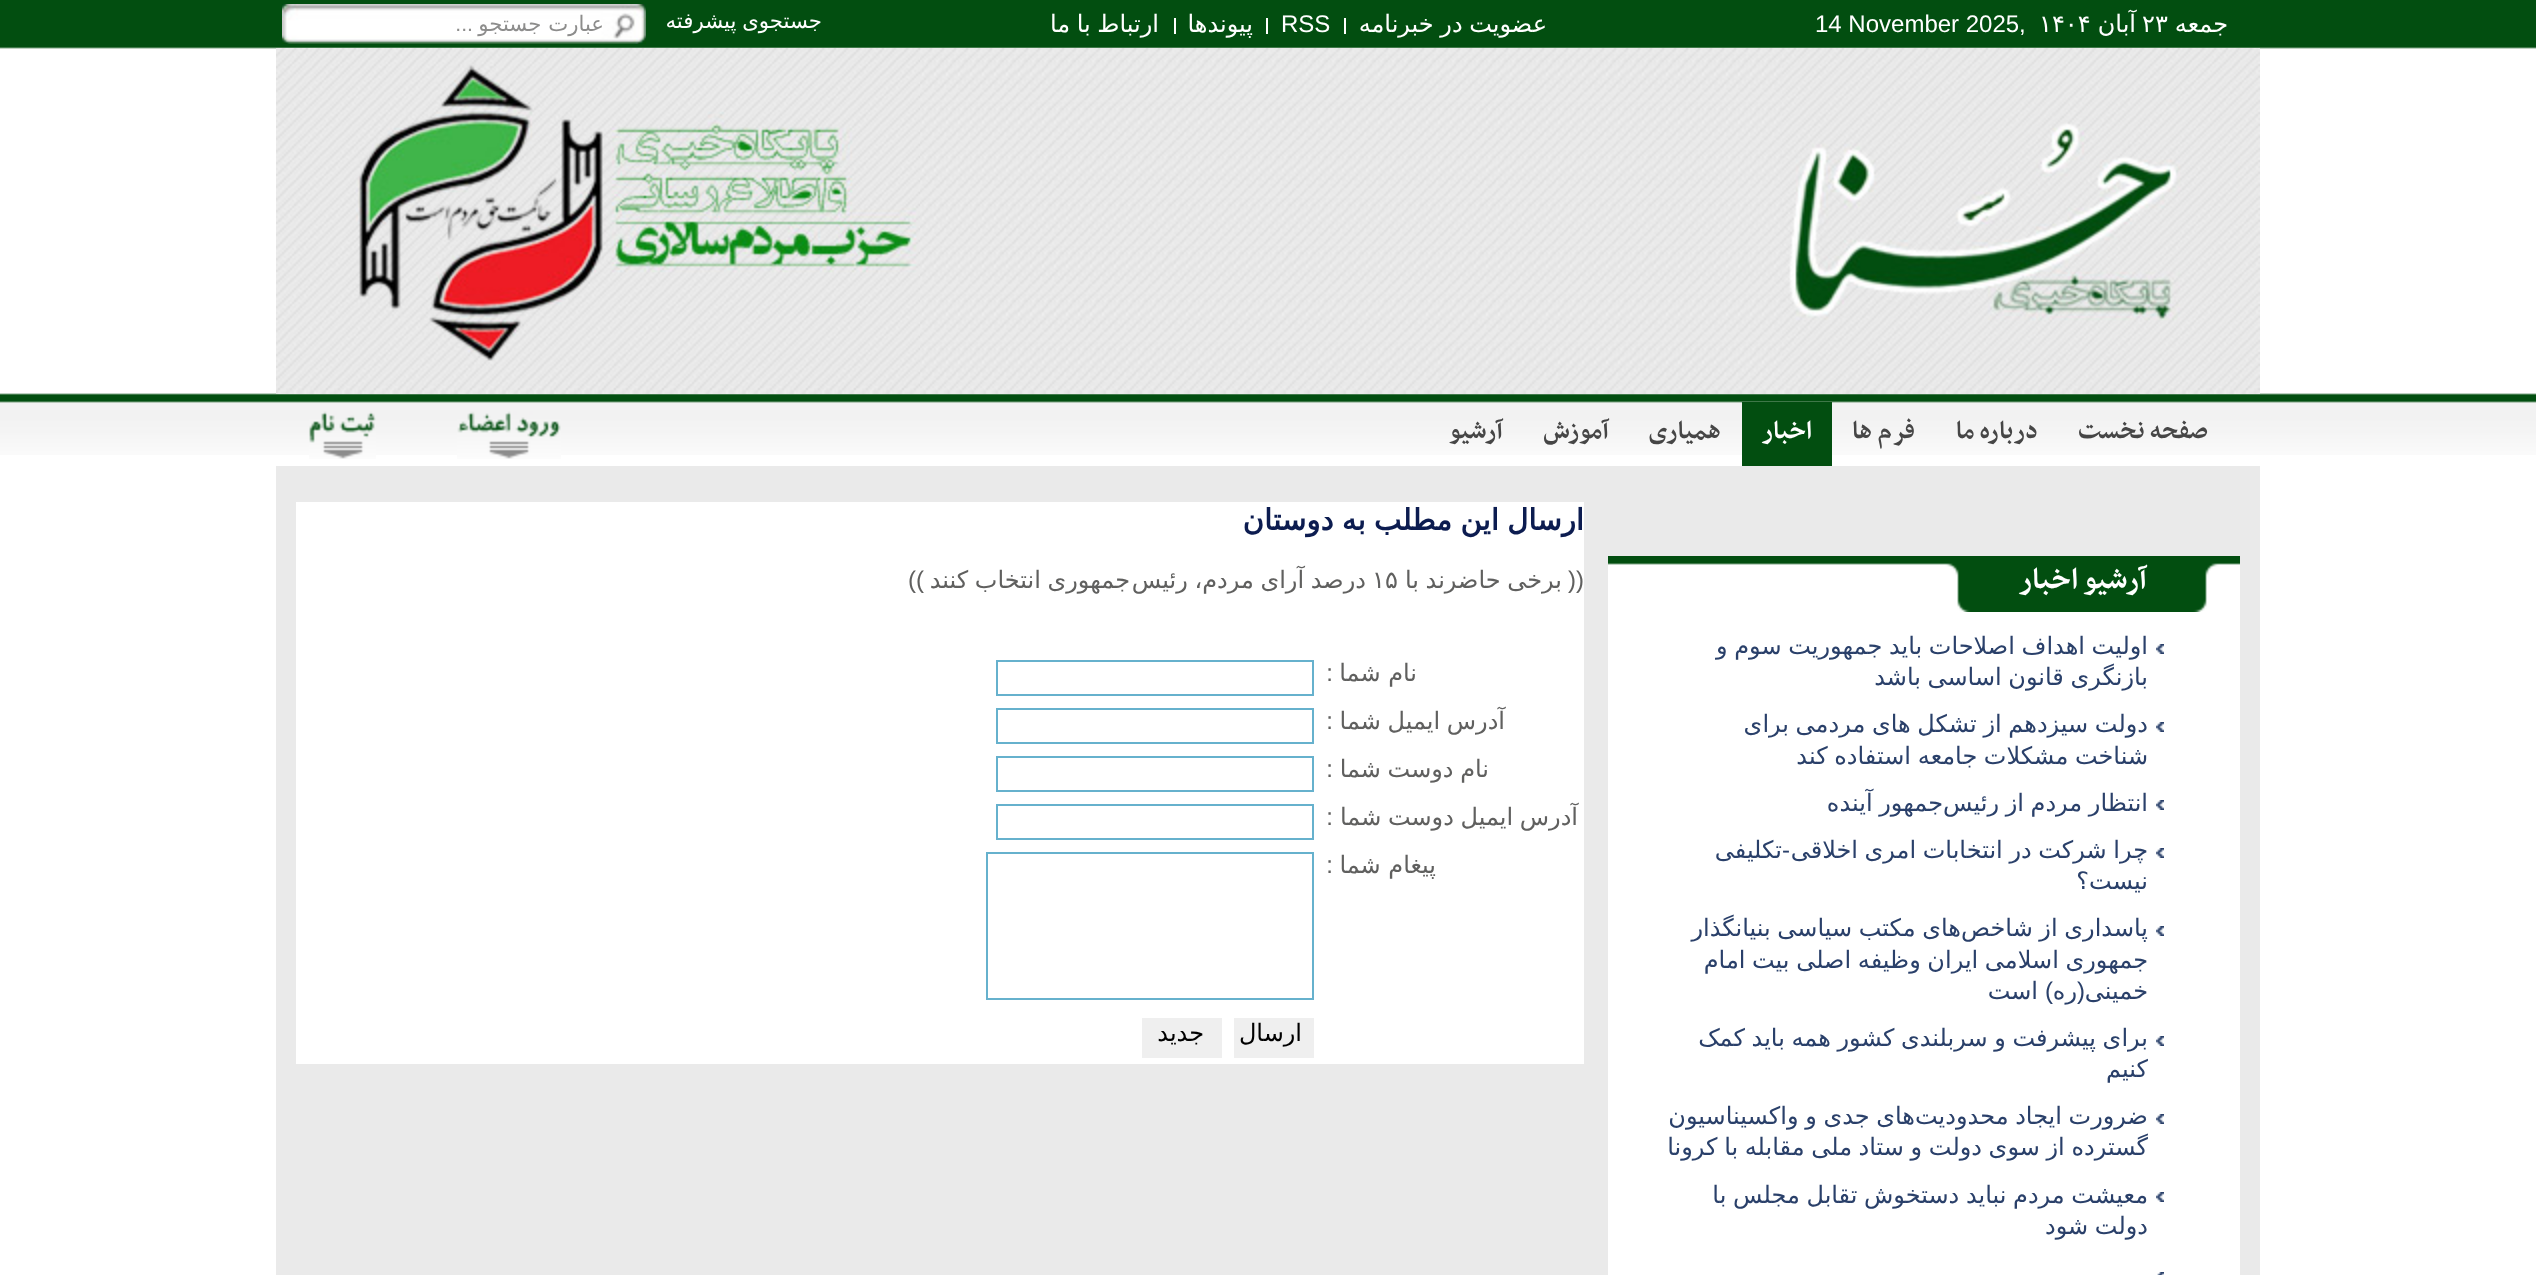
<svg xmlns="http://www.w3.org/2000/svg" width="2536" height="1275">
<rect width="100%" height="100%" fill="#fff"/>
<image x="0" y="0" width="2536" height="455" href="media/1.png"/>
<text x="2228" y="32" style="font-family:DejaVu Sans;font-size:24px;direction:rtl;fill:#fff">جمعه</text>
<text x="2142" y="32" style="font-family:DejaVu Sans;font-size:24px;fill:#fff">۲۳</text>
<text x="2136" y="32" style="font-family:DejaVu Sans;font-size:24px;direction:rtl;fill:#fff">آبان</text>
<text x="2039" y="32" style="font-family:DejaVu Sans;font-size:24px;fill:#fff">۱۴۰۴</text>
<text x="2019" y="32" style="font-family:Liberation Sans;font-size:24px;fill:#fff">,</text>
<text x="1815" y="32" style="font-family:Liberation Sans;font-size:24px;fill:#fff">14 November 2025</text>
<rect x="1344" y="18" width="2" height="16" fill="#fff"/>
<text x="1547" y="32" word-spacing="-1" style="font-family:DejaVu Sans;font-size:24px;direction:rtl;fill:#fff">عضويت در خبرنامه</text>
<rect x="1266" y="18" width="2" height="16" fill="#fff"/>
<text x="1281" y="32" style="font-family:Liberation Sans;font-size:24px;fill:#fff">RSS</text>
<rect x="1174" y="18" width="2" height="16" fill="#fff"/>
<text x="1253" y="32" style="font-family:DejaVu Sans;font-size:24px;direction:rtl;fill:#fff">پیوندها</text>
<text x="1159" y="32" word-spacing="-1" style="font-family:DejaVu Sans;font-size:24px;direction:rtl;fill:#fff">ارتباط با ما</text>
<image x="282" y="4" width="364" height="40" href="media/2.png"/>
<text x="822" y="28" word-spacing="-1" style="font-family:DejaVu Sans;font-size:21.25px;direction:rtl;fill:#fff">جستجوی پيشرفته</text>
<text x="604" y="31" style="font-family:DejaVu Sans;font-size:21.25px;direction:rtl;fill:#8d8d8c">عبارت جستجو</text>
<text x="473" y="31" style="font-family:Liberation Sans;font-size:21.25px;direction:rtl;fill:#8d8d8c">...</text>
<image x="1782" y="48" width="478" height="346" href="media/3.png"/>
<image x="920" y="48" width="862" height="346" href="media/4.png"/>
<image x="276" y="48" width="644" height="346" href="media/5.png"/>
<text x="2208" y="438" style="font-family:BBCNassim;font-size:29.25px;font-weight:bold;direction:rtl;fill:#464646">صفحه نخست</text>
<text x="2038" y="438" style="font-family:BBCNassim;font-size:29.25px;font-weight:bold;direction:rtl;fill:#464646">درباره ما</text>
<text x="1915" y="438" style="font-family:BBCNassim;font-size:29.25px;font-weight:bold;direction:rtl;fill:#464646">فرم ها</text>
<rect x="1742" y="402" width="90" height="64" fill="#024e10"/>
<text x="1812" y="438" style="font-family:BBCNassim;font-size:29.25px;font-weight:bold;direction:rtl;fill:#fff">اخبار</text>
<text x="1721" y="438" style="font-family:BBCNassim;font-size:29.25px;font-weight:bold;direction:rtl;fill:#464646">همیاری</text>
<text x="1609" y="438" style="font-family:BBCNassim;font-size:29.25px;font-weight:bold;direction:rtl;fill:#464646">آموزش</text>
<text x="1503" y="438" style="font-family:BBCNassim;font-size:29.25px;font-weight:bold;direction:rtl;fill:#464646">آرشیو</text>
<image x="457" y="411" width="104" height="48" href="media/6.png"/>
<image x="309" y="411" width="67" height="48" href="media/7.png"/>
<rect x="276" y="466" width="1984" height="809" fill="#eaeaea"/>
<image x="1608" y="556" width="632" height="56" href="media/8.png"/>
<text x="2147" y="588" style="font-family:BBCNassim;font-size:34.5px;font-weight:bold;direction:rtl;fill:#fff">آرشيو اخبار</text>
<rect x="1608" y="612" width="632" height="663" fill="#fff"/>
<image x="2156" y="644" width="8" height="10" href="media/9.png"/>
<text x="2148" y="654" word-spacing="-1" style="font-family:DejaVu Sans;font-size:24px;direction:rtl;fill:#2a406a">اولیت اهداف اصلاحات باید جمهوریت سوم و</text>
<text x="2148" y="685" word-spacing="-1" style="font-family:DejaVu Sans;font-size:24px;direction:rtl;fill:#2a406a">بازنگری قانون اساسی باشد</text>
<image x="2156" y="722" width="8" height="10" href="media/9.png"/>
<text x="2148" y="732" word-spacing="-1" style="font-family:DejaVu Sans;font-size:24px;direction:rtl;fill:#2a406a">دولت سیزدهم از تشکل های مردمی برای</text>
<text x="2148" y="764" word-spacing="-1" style="font-family:DejaVu Sans;font-size:24px;direction:rtl;fill:#2a406a">شناخت مشکلات جامعه</text>
<text x="1911" y="764" word-spacing="-1" style="font-family:DejaVu Sans;font-size:24px;direction:rtl;fill:#2a406a">استفاده کند</text>
<image x="2156" y="800" width="8" height="10" href="media/9.png"/>
<text x="2148" y="811" word-spacing="-1" style="font-family:DejaVu Sans;font-size:24px;direction:rtl;fill:#2a406a">انتظار مردم از رئیس</text>
<text x="1943" y="811" word-spacing="-1" style="font-family:DejaVu Sans;font-size:24px;direction:rtl;fill:#2a406a">جمهور آینده</text>
<image x="2156" y="848" width="8" height="10" href="media/9.png"/>
<text x="2148" y="858" word-spacing="-1" style="font-family:DejaVu Sans;font-size:24px;direction:rtl;fill:#2a406a">چرا شرکت در انتخابات امری اخلاقی</text>
<text x="1790" y="858" style="font-family:Liberation Sans;font-size:24px;direction:rtl;fill:#2a406a">-</text>
<text x="1782" y="858" style="font-family:DejaVu Sans;font-size:24px;direction:rtl;fill:#2a406a">تکلیفی</text>
<text x="2148" y="889" style="font-family:DejaVu Sans;font-size:24px;direction:rtl;fill:#2a406a">نیست؟</text>
<image x="2156" y="926" width="8" height="10" href="media/9.png"/>
<text x="1961" y="936" word-spacing="-1" style="font-family:DejaVu Sans;font-size:24px;direction:rtl;fill:#2a406a">های مکتب سیاسی بنیانگذار</text>
<text x="2148" y="936" word-spacing="-1" style="font-family:DejaVu Sans;font-size:24px;direction:rtl;fill:#2a406a">پاسداری از شاخص</text>
<text x="2148" y="968" word-spacing="-1" style="font-family:DejaVu Sans;font-size:24px;direction:rtl;fill:#2a406a">جمهوری اسلامی ایران وظیفه اصلی بیت امام</text>
<text x="2148" y="999" style="font-family:DejaVu Sans;font-size:24px;direction:rtl;fill:#2a406a">خمینی</text>
<text x="2085" y="999" style="font-family:Liberation Sans;font-size:24px;direction:rtl;fill:#2a406a">(</text>
<text x="2077" y="999" style="font-family:DejaVu Sans;font-size:24px;direction:rtl;fill:#2a406a">ره</text>
<text x="2053" y="999" style="font-family:Liberation Sans;font-size:24px;direction:rtl;fill:#2a406a">)</text>
<text x="2038" y="999" style="font-family:DejaVu Sans;font-size:24px;direction:rtl;fill:#2a406a">است</text>
<image x="2156" y="1036" width="8" height="10" href="media/9.png"/>
<text x="2148" y="1046" word-spacing="-1" style="font-family:DejaVu Sans;font-size:24px;direction:rtl;fill:#2a406a">برای پیشرفت و سربلندی کشور همه باید کمک</text>
<text x="2148" y="1077" style="font-family:DejaVu Sans;font-size:24px;direction:rtl;fill:#2a406a">کنیم</text>
<image x="2156" y="1114" width="8" height="10" href="media/9.png"/>
<text x="1915" y="1124" word-spacing="-1" style="font-family:DejaVu Sans;font-size:24px;direction:rtl;fill:#2a406a">های جدی و واکسیناسیون</text>
<text x="2148" y="1124" word-spacing="-1" style="font-family:DejaVu Sans;font-size:24px;direction:rtl;fill:#2a406a">ضرورت ایجاد محدودیت</text>
<text x="2148" y="1155" word-spacing="-1" style="font-family:DejaVu Sans;font-size:24px;direction:rtl;fill:#2a406a">گسترده از سوی دولت و ستاد ملی مقابله با کرونا</text>
<image x="2156" y="1192" width="8" height="10" href="media/9.png"/>
<text x="2148" y="1203" word-spacing="-1" style="font-family:DejaVu Sans;font-size:24px;direction:rtl;fill:#2a406a">معیشت مردم نباید دستخوش تقابل مجلس با</text>
<text x="2148" y="1234" word-spacing="-1" style="font-family:DejaVu Sans;font-size:24px;direction:rtl;fill:#2a406a">دولت شود</text>
<image x="2157" y="1272" width="7" height="3" href="media/10.png"/>
<rect x="296" y="502" width="1288" height="562" fill="#fff"/>
<text x="1584" y="530" word-spacing="-1" style="font-family:DejaVu Sans;font-size:29.25px;font-weight:bold;direction:rtl;fill:#0c1c50">ارسال اين مطلب به دوستان</text>
<text x="1584" y="588" style="font-family:Liberation Sans;font-size:24px;direction:rtl;fill:#60605f">((</text>
<text x="1562" y="588" word-spacing="-1" style="font-family:DejaVu Sans;font-size:24px;direction:rtl;fill:#60605f">برخی حاضرند با</text>
<text x="1372" y="588" style="font-family:DejaVu Sans;font-size:24px;fill:#60605f">۱۵</text>
<text x="1366" y="588" word-spacing="-1" style="font-family:DejaVu Sans;font-size:24px;direction:rtl;fill:#60605f">درصد آرای مردم، رئیس</text>
<text x="1130" y="588" word-spacing="-1" style="font-family:DejaVu Sans;font-size:24px;direction:rtl;fill:#60605f">جمهوری انتخاب کنند</text>
<text x="924" y="588" style="font-family:Liberation Sans;font-size:24px;direction:rtl;fill:#60605f">))</text>
<text x="1417" y="681" style="font-family:DejaVu Sans;font-size:24px;direction:rtl;fill:#60605f">نام شما</text>
<text x="1333" y="681" style="font-family:Liberation Sans;font-size:24px;direction:rtl;fill:#60605f">:</text>
<rect x="997" y="661" width="316" height="34" fill="none" stroke="#66b1cd" stroke-width="2"/>
<text x="1505" y="729" word-spacing="-1" style="font-family:DejaVu Sans;font-size:24px;direction:rtl;fill:#60605f">آدرس ايميل شما</text>
<text x="1333" y="729" style="font-family:Liberation Sans;font-size:24px;direction:rtl;fill:#60605f">:</text>
<rect x="997" y="709" width="316" height="34" fill="none" stroke="#66b1cd" stroke-width="2"/>
<text x="1489" y="777" word-spacing="-1" style="font-family:DejaVu Sans;font-size:24px;direction:rtl;fill:#60605f">نام دوست شما</text>
<text x="1333" y="777" style="font-family:Liberation Sans;font-size:24px;direction:rtl;fill:#60605f">:</text>
<rect x="997" y="757" width="316" height="34" fill="none" stroke="#66b1cd" stroke-width="2"/>
<text x="1578" y="825" word-spacing="-1" style="font-family:DejaVu Sans;font-size:24px;direction:rtl;fill:#60605f">آدرس ايميل دوست شما</text>
<text x="1333" y="825" style="font-family:Liberation Sans;font-size:24px;direction:rtl;fill:#60605f">:</text>
<rect x="997" y="805" width="316" height="34" fill="none" stroke="#66b1cd" stroke-width="2"/>
<text x="1436" y="873" style="font-family:DejaVu Sans;font-size:24px;direction:rtl;fill:#60605f">پيغام شما</text>
<text x="1333" y="873" style="font-family:Liberation Sans;font-size:24px;direction:rtl;fill:#60605f">:</text>
<rect x="987" y="853" width="326" height="146" fill="none" stroke="#66b1cd" stroke-width="2"/>
<rect x="1234" y="1018" width="80" height="40" fill="#efefef"/>
<text x="1302" y="1041" style="font-family:DejaVu Sans;font-size:24px;direction:rtl;fill:#000">ارسال</text>
<rect x="1142" y="1018" width="80" height="40" fill="#efefef"/>
<text x="1204" y="1041" style="font-family:DejaVu Sans;font-size:24px;direction:rtl;fill:#000">جديد</text>
</svg>
